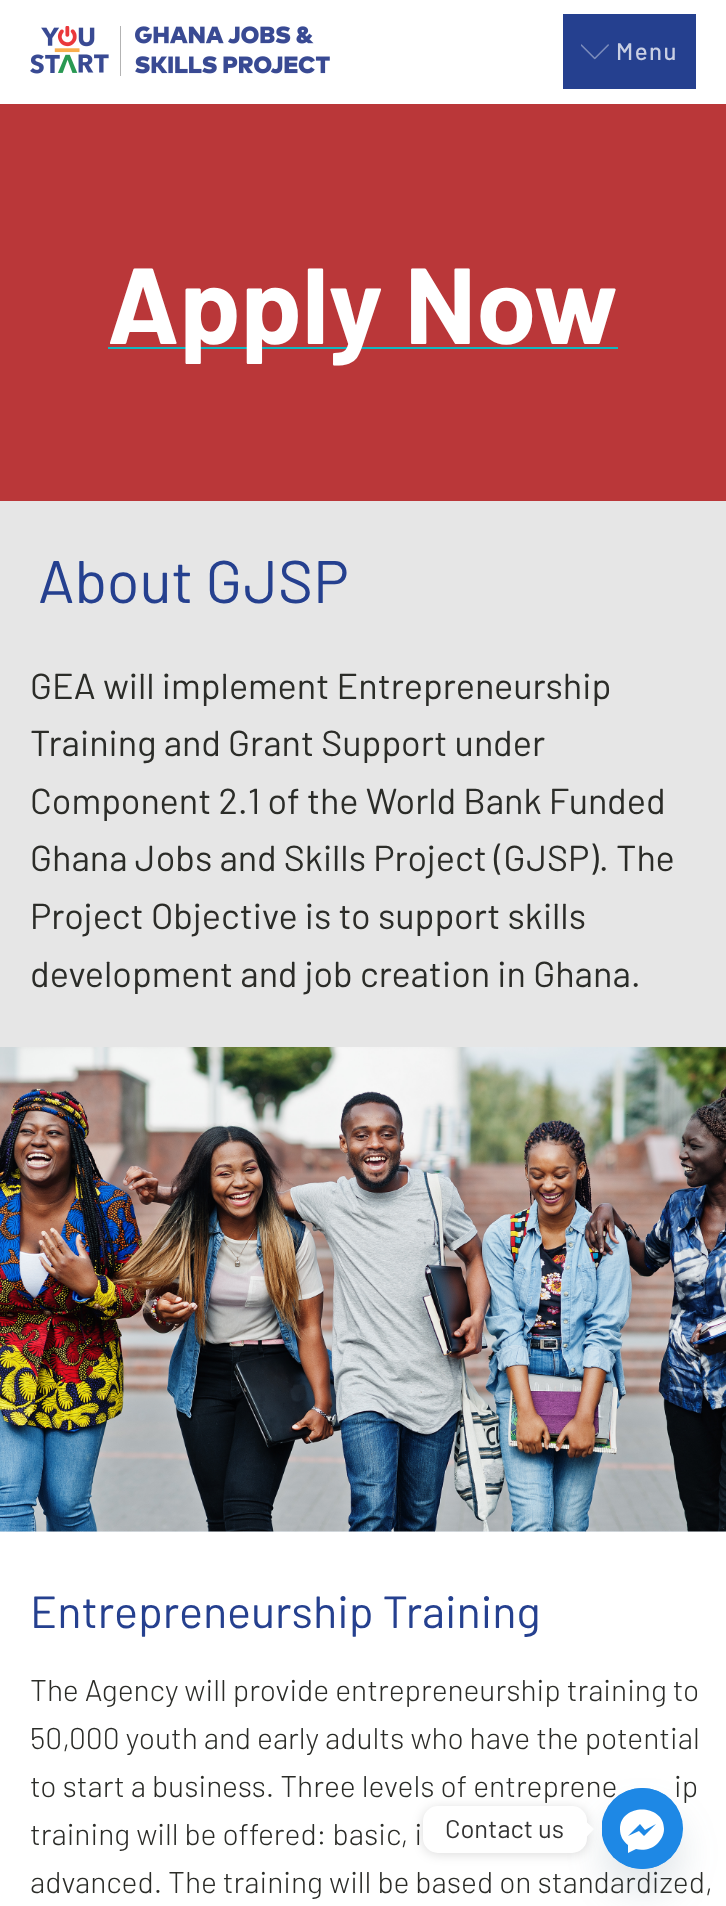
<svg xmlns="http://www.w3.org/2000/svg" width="726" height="1906">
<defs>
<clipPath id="clip1"><rect x="602" y="1788" width="81" height="81"/></clipPath>
</defs>
<rect width="100%" height="100%" fill="#fff"/>
<image x="30" y="26" width="300" height="50" href="media/1.png"/>
<rect x="563" y="14" width="133" height="75" fill="#25408f"/>
<image x="581" y="44" width="28" height="16" href="media/2.png"/>
<text x="616" y="60" style="font-family:Barlow;font-size:24px;font-weight:500;letter-spacing:1.5px;fill:#c9cfe3">Menu</text>
<rect y="104" width="726" height="397" fill="#ba3739"/>
<rect x="108" y="347" width="510" height="2" fill="#11b8c1"/>
<text x="107" y="344" style="font-family:Barlow;font-size:108px;font-weight:bold;fill:#fff">Apply Now</text>
<rect y="501" width="726" height="546" fill="#e6e6e6"/>
<text x="38" y="603" style="font-family:Barlow;font-size:60px;fill:#25408f">About GJSP</text>
<text x="30" y="699" style="font-family:Barlow;font-size:36px;fill:#2b2c28">GEA will implement Entrepreneurship</text>
<text x="30" y="756" style="font-family:Barlow;font-size:36px;fill:#2b2c28">Training and Grant Support under</text>
<text x="30" y="814" style="font-family:Barlow;font-size:36px;fill:#2b2c28">Component 2.1 of the World Bank Funded</text>
<text x="30" y="871" style="font-family:Barlow;font-size:36px;fill:#2b2c28">Ghana Jobs and Skills Project (GJSP). The</text>
<text x="30" y="929" style="font-family:Barlow;font-size:36px;fill:#2b2c28">Project Objective is to support skills</text>
<text x="30" y="987" style="font-family:Barlow;font-size:36px;fill:#2b2c28">development and job creation in Ghana.</text>
<rect y="1531" width="726" height="1" fill="#eff4fb"/>
<image x="0" y="1047" width="726" height="485" href="media/3.png"/>
<text x="30" y="1628" style="font-family:Barlow;font-size:45px;fill:#25408f">Entrepreneurship Training</text>
<text x="30" y="1701" style="font-family:Barlow;font-size:30px;font-weight:300;fill:#2b2c28">The Agency will provide entrepreneurship training to</text>
<text x="30" y="1749" style="font-family:Barlow;font-size:30px;font-weight:300;fill:#2b2c28">50,000 youth and early adults who have the potential</text>
<text x="30" y="1797" style="font-family:Barlow;font-size:30px;font-weight:300;fill:#2b2c28">to start a business. Three levels of entreprene</text>
<text x="674" y="1797" style="font-family:Barlow;font-size:30px;font-weight:300;fill:#2b2c28">ip</text>
<text x="30" y="1845" style="font-family:Barlow;font-size:30px;font-weight:300;fill:#2b2c28">training will be offered: basic, i</text>
<text x="30" y="1893" style="font-family:Barlow;font-size:30px;font-weight:300;fill:#2b2c28">advanced. The training will be based on standardized,</text>
<rect x="602" y="1812" width="81" height="81" rx="40.5" fill="#49687e29" filter="blur(18px)"/>
<circle cx="642.5" cy="1828.5" r="40.5" fill="#1e88e5"/>
<g clip-path="url(#clip1)">
<circle cx="642" cy="1828.5" r="40.5" fill="#1e88e5"/>
</g>
<rect x="423" y="1808" width="164" height="46" rx="15" fill="#00000026" filter="blur(6px)"/>
<rect x="423" y="1806" width="164" height="47" rx="15" fill="#fff"/>
<text x="445" y="1838" style="font-family:Barlow;font-size:25.5px;fill:#333">Contact us</text>
<path d="M586.5 1837v-15l7.5 7z" fill="#fff"/>
<path d="M620 1829c0-26 44-26 44 0c0 6-3 11-7 15c-5 5-14 7-21 5l-8 4v-8c-5-4-8-9-8-16zm19 2l5 5l12-12l-11 6l-5-6l-12 12z" fill="#fff" fill-rule="evenodd"/>
</svg>
